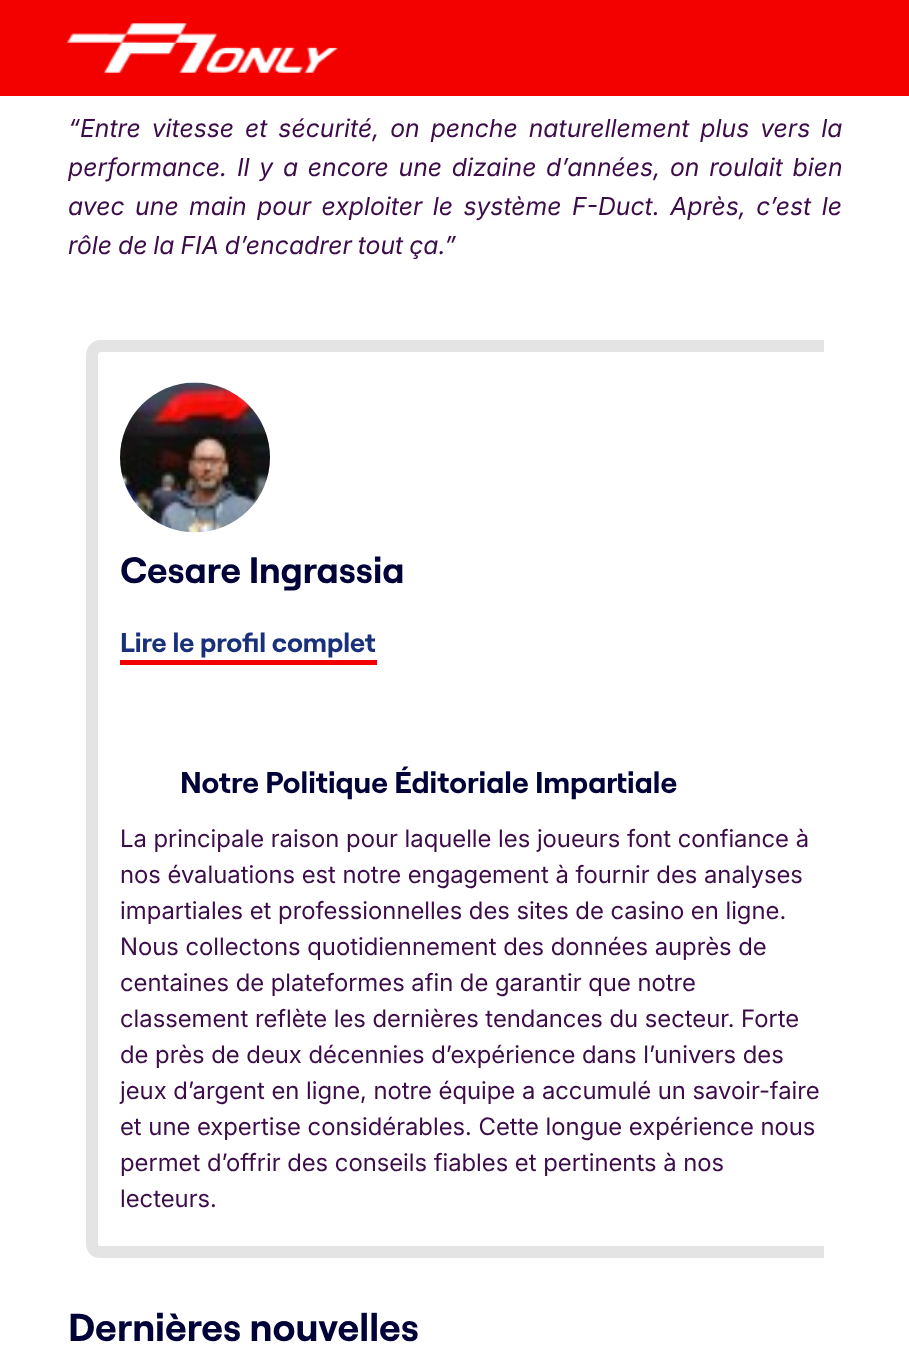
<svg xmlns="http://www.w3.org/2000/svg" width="909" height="1348">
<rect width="100%" height="100%" fill="#fff"/>
<rect width="909" height="96" fill="#f30100"/>
<image x="67" y="23" width="271" height="50" href="media/1.png"/>
<text x="68" y="137" word-spacing="4" style="font-family:Inter;font-size:24.75px;font-style:italic;fill:#3c0c49">“Entre vitesse et sécurité, on penche naturellement plus vers la</text>
<text x="68" y="176" word-spacing="2.75" style="font-family:Inter;font-size:24.75px;font-style:italic;fill:#3c0c49">performance. Il y a encore une dizaine d’années, on roulait bien</text>
<text x="68" y="215" word-spacing="3.5" style="font-family:Inter;font-size:24.75px;font-style:italic;fill:#3c0c49">avec une main pour exploiter le système F-Duct. Après, c’est le</text>
<text x="68" y="254" word-spacing="-1" style="font-family:Inter;font-size:24.75px;font-style:italic;fill:#3c0c49">rôle de la FIA d’encadrer tout ça.”</text>
<path d="M100 340h724v918h-724c-8 0-14-6-14-14v-888c0-9 6-16 14-16zm0 12h724v894h-724c-1 0-2-1-2-2v-888c0-2 1-4 2-4z" fill="#e4e4e4" fill-rule="evenodd"/>
<image x="120" y="382" width="150" height="151" href="media/2.png"/>
<text x="120" y="583" style="font-family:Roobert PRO;font-size:36.75px;font-weight:bold;fill:#000238">Cesare Ingrassia</text>
<text x="120" y="652" style="font-family:Roobert PRO;font-size:27px;font-weight:bold;fill:#18317a">Lire le profil complet</text>
<rect x="120" y="660" width="257" height="5" fill="#f30100"/>
<text x="180" y="793" style="font-family:Roobert PRO;font-size:30px;font-weight:bold;fill:#000238">Notre Politique Éditoriale Impartiale</text>
<text x="120" y="847" style="font-family:Inter;font-size:24px;fill:#3c0c49">La principale raison pour laquelle les joueurs font confiance à</text>
<text x="120" y="883" style="font-family:Inter;font-size:24px;fill:#3c0c49">nos évaluations est notre engagement à fournir des analyses</text>
<text x="120" y="919" style="font-family:Inter;font-size:24px;fill:#3c0c49">impartiales et professionnelles des sites de casino en ligne.</text>
<text x="120" y="955" style="font-family:Inter;font-size:24px;fill:#3c0c49">Nous collectons quotidiennement des données auprès de</text>
<text x="120" y="991" style="font-family:Inter;font-size:24px;fill:#3c0c49">centaines de plateformes afin de garantir que notre</text>
<text x="120" y="1027" style="font-family:Inter;font-size:24px;fill:#3c0c49">classement reflète les dernières tendances du secteur. Forte</text>
<text x="120" y="1063" style="font-family:Inter;font-size:24px;fill:#3c0c49">de près de deux décennies d’expérience dans l’univers des</text>
<text x="120" y="1099" style="font-family:Inter;font-size:24px;fill:#3c0c49">jeux d’argent en ligne, notre équipe a accumulé un savoir-faire</text>
<text x="120" y="1135" style="font-family:Inter;font-size:24px;fill:#3c0c49">et une expertise considérables. Cette longue expérience nous</text>
<text x="120" y="1171" style="font-family:Inter;font-size:24px;fill:#3c0c49">permet d’offrir des conseils fiables et pertinents à nos</text>
<text x="120" y="1207" style="font-family:Inter;font-size:24px;fill:#3c0c49">lecteurs.</text>
<text x="68" y="1341" style="font-family:Roobert PRO;font-size:39px;font-weight:bold;fill:#000238">Dernières nouvelles</text>
</svg>
